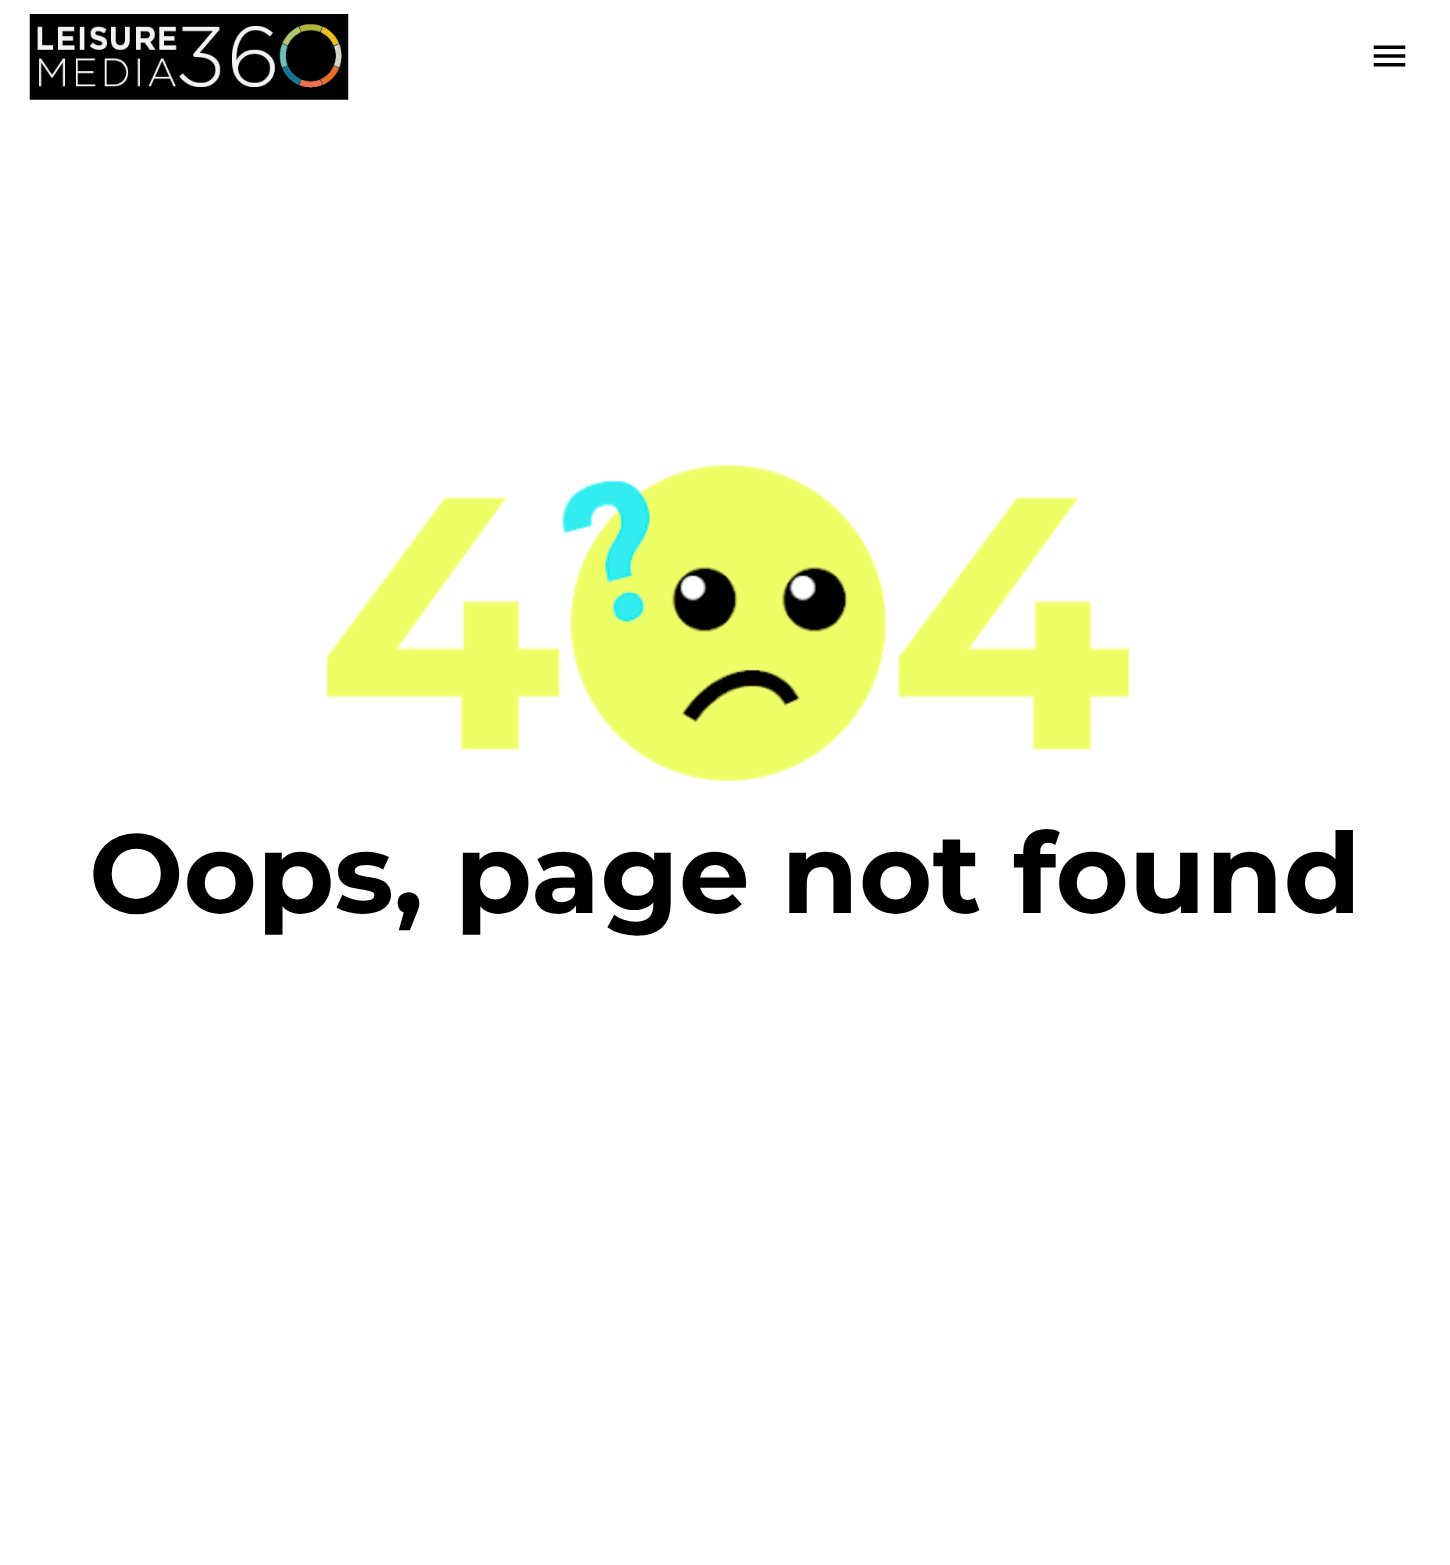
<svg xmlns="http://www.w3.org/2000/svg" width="1450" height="1565">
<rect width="100%" height="100%" fill="#fff"/>
<image x="29" y="14" width="320" height="86" href="media/1.png"/>
<image x="1373" y="45" width="33" height="22" href="media/2.png"/>
<image x="325" y="465" width="804" height="316" href="media/3.png"/>
<text x="89" y="913" style="font-family:Montserrat;font-size:112px;font-weight:bold;fill:#000">Oops, page not found</text>
</svg>
